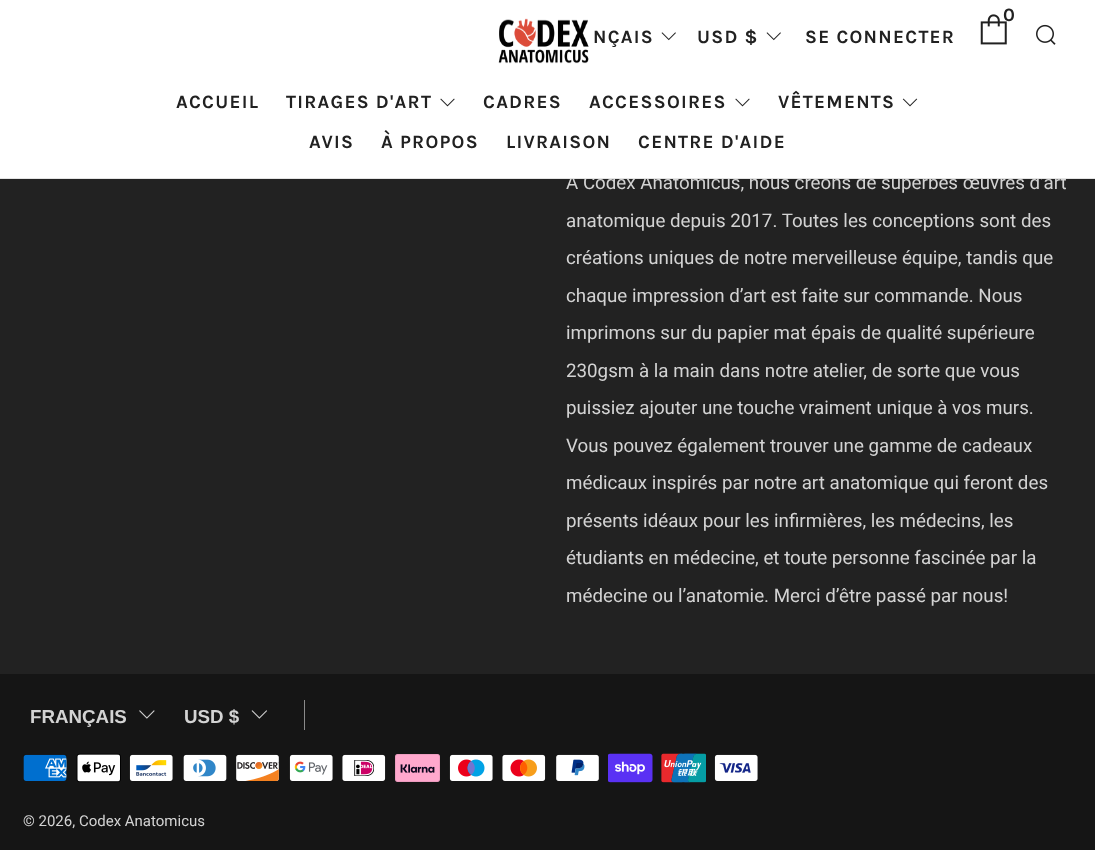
<svg xmlns="http://www.w3.org/2000/svg" width="1095" height="850">
<rect width="100%" height="100%" fill="#222"/>
<text x="566" y="189" style="font-family:Roboto;font-size:18.75px;fill:#d3d3d3">A Codex Anatomicus, nous créons de superbes œuvres d’art</text>
<rect width="1095" height="178" fill="#fff"/>
<rect y="178" width="1095" height="1" fill="#e4e4e4"/>
<image x="980" y="14" width="27" height="31" href="media/1.png"/>
<text x="1003" y="21" style="font-family:Karla;font-size:18.75px;font-weight:bold;letter-spacing:1.25px;fill:#212121">0</text>
<text x="593" y="43" style="font-family:Karla;font-size:18.75px;font-weight:bold;letter-spacing:1.25px;fill:#212121">NÇAIS</text>
<image x="661" y="32" width="15" height="9" href="media/2.png"/>
<text x="697" y="43" style="font-family:Karla;font-size:18.75px;font-weight:bold;letter-spacing:1.25px;fill:#212121">USD $</text>
<image x="766" y="32" width="15" height="9" href="media/2.png"/>
<text x="805" y="43" style="font-family:Karla;font-size:18.75px;font-weight:bold;letter-spacing:1.25px;fill:#212121">SE CONNECTER</text>
<image x="1036" y="24" width="20" height="21" href="media/3.png"/>
<text x="176" y="108" style="font-family:Karla;font-size:18.75px;font-weight:bold;letter-spacing:1.25px;fill:#212121">ACCUEIL</text>
<text x="286" y="108" style="font-family:Karla;font-size:18.75px;font-weight:bold;letter-spacing:1.25px;fill:#212121">TIRAGES D'ART</text>
<image x="440" y="98" width="15" height="9" href="media/4.png"/>
<text x="483" y="108" style="font-family:Karla;font-size:18.75px;font-weight:bold;letter-spacing:1.25px;fill:#212121">CADRES</text>
<text x="589" y="108" style="font-family:Karla;font-size:18.75px;font-weight:bold;letter-spacing:1.25px;fill:#212121">ACCESSOIRES</text>
<image x="735" y="98" width="15" height="9" href="media/4.png"/>
<text x="778" y="108" style="font-family:Karla;font-size:18.75px;font-weight:bold;letter-spacing:1.25px;fill:#212121">VÊTEMENTS</text>
<image x="902" y="98" width="16" height="9" href="media/5.png"/>
<text x="309" y="148" style="font-family:Karla;font-size:18.75px;font-weight:bold;letter-spacing:1.25px;fill:#212121">AVIS</text>
<text x="381" y="148" style="font-family:Karla;font-size:18.75px;font-weight:bold;letter-spacing:1.25px;fill:#212121">À PROPOS</text>
<text x="506" y="148" style="font-family:Karla;font-size:18.75px;font-weight:bold;letter-spacing:1.25px;fill:#212121">LIVRAISON</text>
<text x="638" y="148" style="font-family:Karla;font-size:18.75px;font-weight:bold;letter-spacing:1.25px;fill:#212121">CENTRE D'AIDE</text>
<image x="498" y="18" width="91" height="46" href="media/6.png"/>
<text x="566" y="227" style="font-family:Roboto;font-size:18.75px;fill:#d3d3d3">anatomique depuis 2017. Toutes les conceptions sont des</text>
<text x="566" y="264" style="font-family:Roboto;font-size:18.75px;fill:#d3d3d3">créations uniques de notre merveilleuse équipe, tandis que</text>
<text x="566" y="302" style="font-family:Roboto;font-size:18.75px;fill:#d3d3d3">chaque impression d’art est faite sur commande. Nous</text>
<text x="566" y="339" style="font-family:Roboto;font-size:18.75px;fill:#d3d3d3">imprimons sur du papier mat épais de qualité supérieure</text>
<text x="566" y="377" style="font-family:Roboto;font-size:18.75px;fill:#d3d3d3">230gsm à la main dans notre atelier, de sorte que vous</text>
<text x="566" y="414" style="font-family:Roboto;font-size:18.75px;fill:#d3d3d3">puissiez ajouter une touche vraiment unique à vos murs.</text>
<text x="566" y="452" style="font-family:Roboto;font-size:18.75px;fill:#d3d3d3">Vous pouvez également trouver une gamme de cadeaux</text>
<text x="566" y="489" style="font-family:Roboto;font-size:18.75px;fill:#d3d3d3">médicaux inspirés par notre art anatomique qui feront des</text>
<text x="566" y="527" style="font-family:Roboto;font-size:18.75px;fill:#d3d3d3">présents idéaux pour les infirmières, les médecins, les</text>
<text x="566" y="564" style="font-family:Roboto;font-size:18.75px;fill:#d3d3d3">étudiants en médecine, et toute personne fascinée par la</text>
<text x="566" y="602" style="font-family:Roboto;font-size:18.75px;fill:#d3d3d3">médecine ou l’anatomie. Merci d’être passé par nous!</text>
<rect y="674" width="1095" height="176" fill="#151515"/>
<text x="30" y="723" style="font-family:Liberation Sans;font-size:18.75px;font-weight:bold;fill:#d3d3d3">FRANÇAIS</text>
<image x="139" y="710" width="16" height="9" href="media/7.png"/>
<text x="184" y="723" style="font-family:Liberation Sans;font-size:18.75px;font-weight:bold;fill:#d3d3d3">USD $</text>
<image x="251" y="710" width="16" height="9" href="media/8.png"/>
<rect x="304" y="700" width="1" height="30" fill="#8a8a8a"/>
<image x="23" y="754" width="44" height="27" href="media/9.png"/>
<image x="76" y="753" width="45" height="30" href="media/10.png"/>
<image x="129" y="754" width="44" height="27" href="media/11.png"/>
<image x="183" y="754" width="44" height="27" href="media/12.png"/>
<image x="236" y="754" width="43" height="27" href="media/13.png"/>
<image x="289" y="754" width="44" height="27" href="media/14.png"/>
<image x="342" y="754" width="44" height="27" href="media/15.png"/>
<image x="395" y="754" width="45" height="28" href="media/16.png"/>
<image x="449" y="754" width="44" height="27" href="media/17.png"/>
<image x="502" y="754" width="44" height="27" href="media/18.png"/>
<image x="556" y="754" width="43" height="27" href="media/19.png"/>
<image x="608" y="753" width="45" height="30" href="media/20.png"/>
<image x="661" y="753" width="45" height="30" href="media/21.png"/>
<image x="714" y="754" width="44" height="27" href="media/22.png"/>
<text x="23" y="826" style="font-family:Roboto;font-size:15px;fill:#d3d3d3">© 2026, Codex Anatomicus</text>
</svg>
